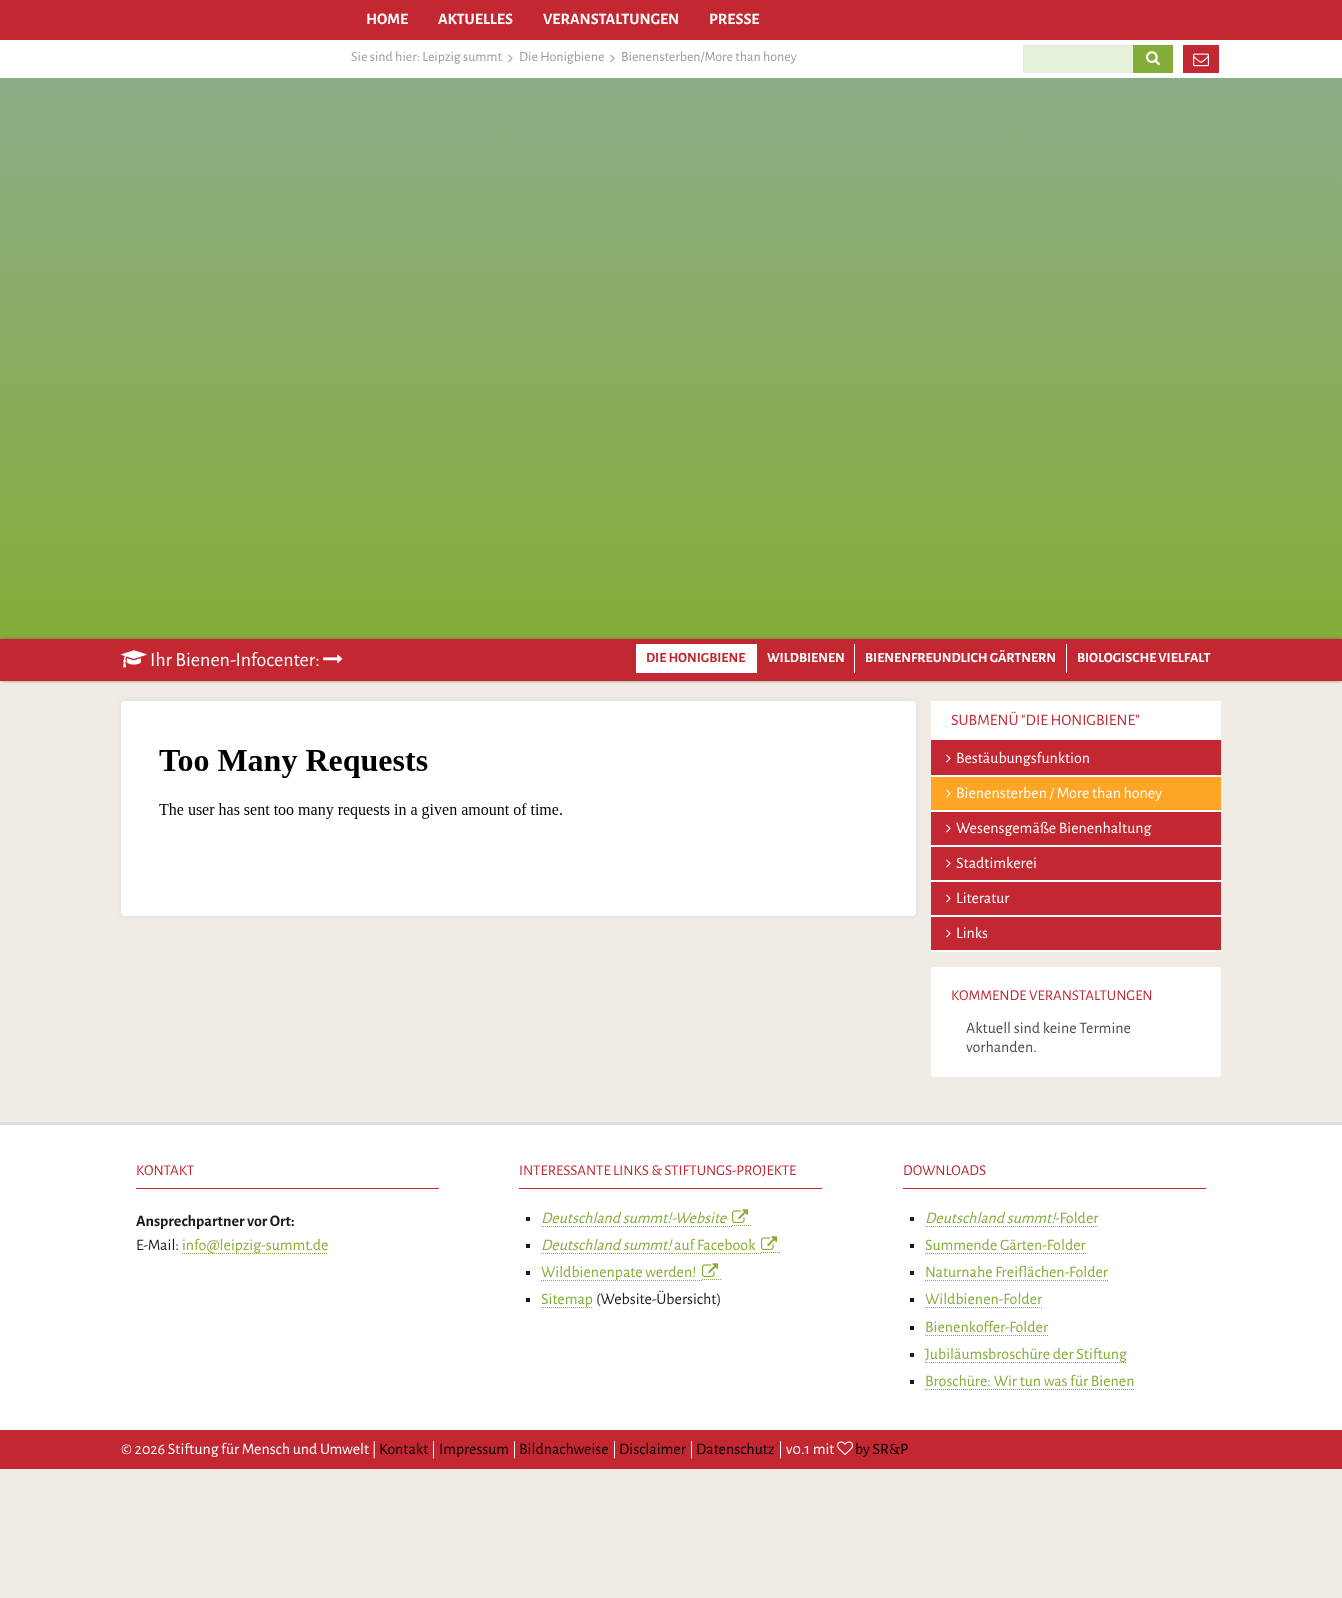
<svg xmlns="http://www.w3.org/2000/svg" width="1342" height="1598">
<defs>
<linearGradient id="g1" gradientUnits="userSpaceOnUse" x1="671" y1="639" x2="671" y2="78"><stop offset="0" stop-color="#85ad39"/><stop offset="1" stop-color="#8aad87"/></linearGradient>
<clipPath id="clip1"><path d="M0 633h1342v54h-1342zm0 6h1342v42h-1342z" clip-rule="evenodd"/></clipPath>
</defs>
<rect width="100%" height="100%" fill="#f0ece5"/>
<rect width="1342" height="40" fill="#c32731"/>
<text x="366" y="24" style="font-family:Alegreya Sans;font-size:16px;font-weight:bold;fill:#fff">HOME</text>
<text x="438" y="24" style="font-family:Alegreya Sans;font-size:16px;font-weight:bold;fill:#fff">AKTUELLES</text>
<text x="543" y="24" style="font-family:Alegreya Sans;font-size:16px;font-weight:bold;fill:#fff">VERANSTALTUNGEN</text>
<text x="709" y="24" style="font-family:Alegreya Sans;font-size:16px;font-weight:bold;fill:#fff">PRESSE</text>
<rect y="40" width="1342" height="38" fill="#fff"/>
<text x="351" y="61" style="font-family:Alegreya Sans;font-size:14px;fill:#9c9c9c">Sie sind hier: Leipzig summt</text>
<image x="508" y="54" width="5" height="9" href="media/1.png"/>
<text x="519" y="61" style="font-family:Alegreya Sans;font-size:14px;fill:#9c9c9c">Die Honigbiene</text>
<image x="610" y="54" width="5" height="9" href="media/1.png"/>
<text x="621" y="61" style="font-family:Alegreya Sans;font-size:14px;fill:#9c9c9c">Bienensterben/More than honey</text>
<rect x="1024" y="46" width="109" height="26" fill="#e4f2da"/>
<rect x="1023.5" y="45.5" width="149" height="27" fill="none" stroke="#e8e8e8"/>
<rect x="1133" y="45" width="40" height="28" fill="#85ad39"/>
<image x="1146" y="51" width="14" height="15" href="media/2.png"/>
<rect x="1183" y="45" width="36" height="28" fill="#c32731"/>
<image x="1193" y="53" width="16" height="14" href="media/3.png"/>
<rect y="78" width="1342" height="561" fill="url(#g1)"/>
<rect y="639" width="1342" height="42" fill="#c32731"/>
<g clip-path="url(#clip1)">
<rect x="1" y="640" width="1340" height="40" fill="#4d4d4d" filter="blur(2px)"/>
</g>
<image x="121" y="650" width="26" height="18" href="media/4.png"/>
<text x="150" y="666" style="font-family:Alegreya Sans;font-size:20px;fill:#fff">Ihr Bienen-Infocenter:</text>
<image x="323" y="654" width="20" height="10" href="media/5.png"/>
<rect x="636" y="644" width="121" height="29" fill="#fff"/>
<text x="646" y="662" style="font-family:Alegreya Sans;font-size:14px;font-weight:bold;fill:#c32731">DIE HONIGBIENE</text>
<text x="767" y="662" style="font-family:Alegreya Sans;font-size:14px;font-weight:bold;fill:#fff">WILDBIENEN</text>
<rect x="854" y="644" width="1" height="29" fill="#fff"/>
<text x="865" y="662" style="font-family:Alegreya Sans;font-size:14px;font-weight:bold;fill:#fff">BIENENFREUNDLICH GÄRTNERN</text>
<rect x="1066" y="644" width="1" height="29" fill="#fff"/>
<text x="1077" y="662" style="font-family:Alegreya Sans;font-size:14px;font-weight:bold;fill:#fff">BIOLOGISCHE VIELFALT</text>
<rect x="120" y="700" width="797" height="217" rx="5" fill="#d8e3dd" filter="blur(2px)"/>
<rect x="121" y="701" width="795" height="215" rx="4" fill="#fff"/>
<image x="159" y="750" width="403" height="69" href="media/6.png"/>
<rect x="931" y="740" width="290" height="210" fill="#c32731"/>
<rect x="931" y="701" width="290" height="39" fill="#fff"/>
<text x="951" y="725" style="font-family:Alegreya Sans;font-size:16px;fill:#c32731">SUBMENÜ "DIE HONIGBIENE"</text>
<rect x="931" y="775" width="290" height="2" fill="#fff"/>
<image x="946" y="754" width="5" height="9" href="media/7.png"/>
<text x="956" y="763" style="font-family:Alegreya Sans;font-size:16px;fill:#fff">Bestäubungsfunktion</text>
<rect x="931" y="777" width="290" height="33" fill="#fea525"/>
<rect x="931" y="810" width="290" height="2" fill="#fff"/>
<image x="946" y="789" width="5" height="9" href="media/8.png"/>
<text x="956" y="798" style="font-family:Alegreya Sans;font-size:16px;fill:#fff">Bienensterben / More than honey</text>
<rect x="931" y="845" width="290" height="2" fill="#fff"/>
<image x="946" y="824" width="5" height="9" href="media/7.png"/>
<text x="956" y="833" style="font-family:Alegreya Sans;font-size:16px;fill:#fff">Wesensgemäße Bienenhaltung</text>
<rect x="931" y="880" width="290" height="2" fill="#fff"/>
<image x="946" y="859" width="5" height="9" href="media/7.png"/>
<text x="956" y="868" style="font-family:Alegreya Sans;font-size:16px;fill:#fff">Stadtimkerei</text>
<rect x="931" y="915" width="290" height="2" fill="#fff"/>
<image x="946" y="894" width="5" height="9" href="media/7.png"/>
<text x="956" y="903" style="font-family:Alegreya Sans;font-size:16px;fill:#fff">Literatur</text>
<rect x="931" y="950" width="290" height="2" fill="#fff"/>
<image x="946" y="929" width="5" height="9" href="media/7.png"/>
<text x="956" y="938" style="font-family:Alegreya Sans;font-size:16px;fill:#fff">Links</text>
<rect x="931" y="967" width="290" height="110" rx="4" fill="#fff"/>
<text x="951" y="1000" style="font-family:Alegreya Sans;font-size:15px;fill:#c32731">KOMMENDE VERANSTALTUNGEN</text>
<text x="966" y="1033" style="font-family:Alegreya Sans;font-size:16px;fill:#4d4d4d">Aktuell sind keine Termine</text>
<text x="966" y="1052" style="font-family:Alegreya Sans;font-size:16px;fill:#4d4d4d">vorhanden.</text>
<rect y="1125" width="1342" height="305" fill="#fff"/>
<rect y="1122" width="1342" height="3" fill="#ddd"/>
<rect x="136" y="1188" width="303" height="1" fill="#c32731"/>
<text x="136" y="1175" style="font-family:Alegreya Sans;font-size:15px;fill:#c32731">KONTAKT</text>
<text x="136" y="1226" style="font-family:Alegreya Sans;font-size:16px;font-weight:bold;fill:#1a1a1a">Ansprechpartner vor Ort:</text>
<text x="136" y="1250" style="font-family:Alegreya Sans;font-size:16px;fill:#1a1a1a">E-Mail:</text>
<path d="M182 1253.5h146" fill="none" stroke="#85ad39" stroke-dasharray="1 1"/>
<text x="182" y="1250" style="font-family:Alegreya Sans;font-size:16px;fill:#85ad39">info@leipzig-summt.de</text>
<rect x="519" y="1188" width="303" height="1" fill="#c32731"/>
<text x="519" y="1175" style="font-family:Alegreya Sans;font-size:15px;fill:#c32731">INTERESSANTE LINKS &amp; STIFTUNGS-PROJEKTE</text>
<rect x="526" y="1217" width="4" height="4" fill="#1a1a1a"/>
<path d="M541 1226.5h191" fill="none" stroke="#85ad39" stroke-dasharray="1 1"/>
<path d="M732 1225.5h20" fill="none" stroke="#85ad39" stroke-dasharray="1 1"/>
<text x="541" y="1223" style="font-family:Alegreya Sans;font-size:16px;font-style:italic;fill:#85ad39">Deutschland summt!-Website</text>
<image x="732" y="1209" width="16" height="14" href="media/9.png"/>
<rect x="526" y="1244" width="4" height="4" fill="#1a1a1a"/>
<path d="M541 1253.5h131" fill="none" stroke="#85ad39" stroke-dasharray="1 1"/>
<path d="M672 1253.5h89" fill="none" stroke="#85ad39" stroke-dasharray="1 1"/>
<path d="M761 1252.5h20" fill="none" stroke="#85ad39" stroke-dasharray="1 1"/>
<text x="541" y="1250" style="font-family:Alegreya Sans;font-size:16px;font-style:italic;fill:#85ad39">Deutschland summt!</text>
<text x="674" y="1250" style="font-family:Alegreya Sans;font-size:16px;fill:#85ad39">auf Facebook</text>
<image x="761" y="1236" width="16" height="14" href="media/9.png"/>
<rect x="526" y="1271" width="4" height="4" fill="#1a1a1a"/>
<path d="M541 1280.5h161" fill="none" stroke="#85ad39" stroke-dasharray="1 1"/>
<path d="M702 1279.5h20" fill="none" stroke="#85ad39" stroke-dasharray="1 1"/>
<text x="541" y="1277" style="font-family:Alegreya Sans;font-size:16px;fill:#85ad39">Wildbienenpate werden!</text>
<image x="702" y="1263" width="16" height="14" href="media/9.png"/>
<rect x="526" y="1298" width="4" height="4" fill="#1a1a1a"/>
<text x="541" y="1304" style="font-family:Alegreya Sans;font-size:16px;fill:#85ad39">Sitemap</text>
<path d="M541 1307.5h52" fill="none" stroke="#85ad39" stroke-dasharray="1 1"/>
<text x="596" y="1304" style="font-family:Alegreya Sans;font-size:16px;fill:#1a1a1a">(Website-Übersicht)</text>
<rect x="903" y="1188" width="303" height="1" fill="#c32731"/>
<text x="903" y="1175" style="font-family:Alegreya Sans;font-size:15px;fill:#c32731">DOWNLOADS</text>
<rect x="910" y="1217" width="4" height="4" fill="#1a1a1a"/>
<text x="925" y="1223" style="font-family:Alegreya Sans;font-size:16px;font-style:italic;fill:#85ad39">Deutschland summt!</text>
<path d="M925 1226.5h130" fill="none" stroke="#85ad39" stroke-dasharray="1 1"/>
<path d="M1055 1226.5h44" fill="none" stroke="#85ad39" stroke-dasharray="1 1"/>
<text x="1055" y="1223" style="font-family:Alegreya Sans;font-size:16px;fill:#85ad39">-Folder</text>
<rect x="910" y="1244" width="4" height="4" fill="#1a1a1a"/>
<text x="925" y="1250" style="font-family:Alegreya Sans;font-size:16px;fill:#85ad39">Summende Gärten-Folder</text>
<path d="M925 1253.5h161" fill="none" stroke="#85ad39" stroke-dasharray="1 1"/>
<rect x="910" y="1271" width="4" height="4" fill="#1a1a1a"/>
<text x="925" y="1277" style="font-family:Alegreya Sans;font-size:16px;fill:#85ad39">Naturnahe Freiflächen-Folder</text>
<path d="M925 1280.5h183" fill="none" stroke="#85ad39" stroke-dasharray="1 1"/>
<rect x="910" y="1298" width="4" height="4" fill="#1a1a1a"/>
<text x="925" y="1304" style="font-family:Alegreya Sans;font-size:16px;fill:#85ad39">Wildbienen-Folder</text>
<path d="M925 1307.5h117" fill="none" stroke="#85ad39" stroke-dasharray="1 1"/>
<rect x="910" y="1326" width="4" height="4" fill="#1a1a1a"/>
<text x="925" y="1332" style="font-family:Alegreya Sans;font-size:16px;fill:#85ad39">Bienenkoffer-Folder</text>
<path d="M925 1335.5h123" fill="none" stroke="#85ad39" stroke-dasharray="1 1"/>
<rect x="910" y="1353" width="4" height="4" fill="#1a1a1a"/>
<path d="M925 1362.5h202" fill="none" stroke="#85ad39" stroke-dasharray="1 1"/>
<text x="925" y="1359" style="font-family:Alegreya Sans;font-size:16px;fill:#85ad39">Jubiläumsbroschüre der Stiftung</text>
<rect x="910" y="1380" width="4" height="4" fill="#1a1a1a"/>
<text x="925" y="1386" style="font-family:Alegreya Sans;font-size:16px;fill:#85ad39">Broschüre: Wir tun was für Bienen</text>
<path d="M925 1389.5h209" fill="none" stroke="#85ad39" stroke-dasharray="1 1"/>
<rect y="1430" width="1342" height="39" fill="#c32731"/>
<text x="121" y="1454" style="font-family:Alegreya Sans;font-size:16px;fill:#fff">© 2026 Stiftung für Mensch und Umwelt |</text>
<text x="379" y="1454" style="font-family:Alegreya Sans;font-size:16px;fill:#000">Kontakt</text>
<text x="431" y="1454" style="font-family:Alegreya Sans;font-size:16px;fill:#fff">|</text>
<text x="439" y="1454" style="font-family:Alegreya Sans;font-size:16px;fill:#000">Impressum</text>
<text x="512" y="1454" style="font-family:Alegreya Sans;font-size:16px;fill:#fff">|</text>
<text x="519" y="1454" style="font-family:Alegreya Sans;font-size:16px;fill:#000">Bildnachweise</text>
<text x="612" y="1454" style="font-family:Alegreya Sans;font-size:16px;fill:#fff">|</text>
<text x="619" y="1454" style="font-family:Alegreya Sans;font-size:16px;fill:#000">Disclaimer</text>
<text x="689" y="1454" style="font-family:Alegreya Sans;font-size:16px;fill:#fff">|</text>
<text x="696" y="1454" style="font-family:Alegreya Sans;font-size:16px;fill:#000">Datenschutz</text>
<text x="778" y="1454" style="font-family:Alegreya Sans;font-size:16px;fill:#fff">| v0.1 mit</text>
<image x="837" y="1441" width="16" height="15" href="media/10.png"/>
<text x="855" y="1454" style="font-family:Alegreya Sans;font-size:16px;fill:#000">by SR&amp;P</text>
</svg>
